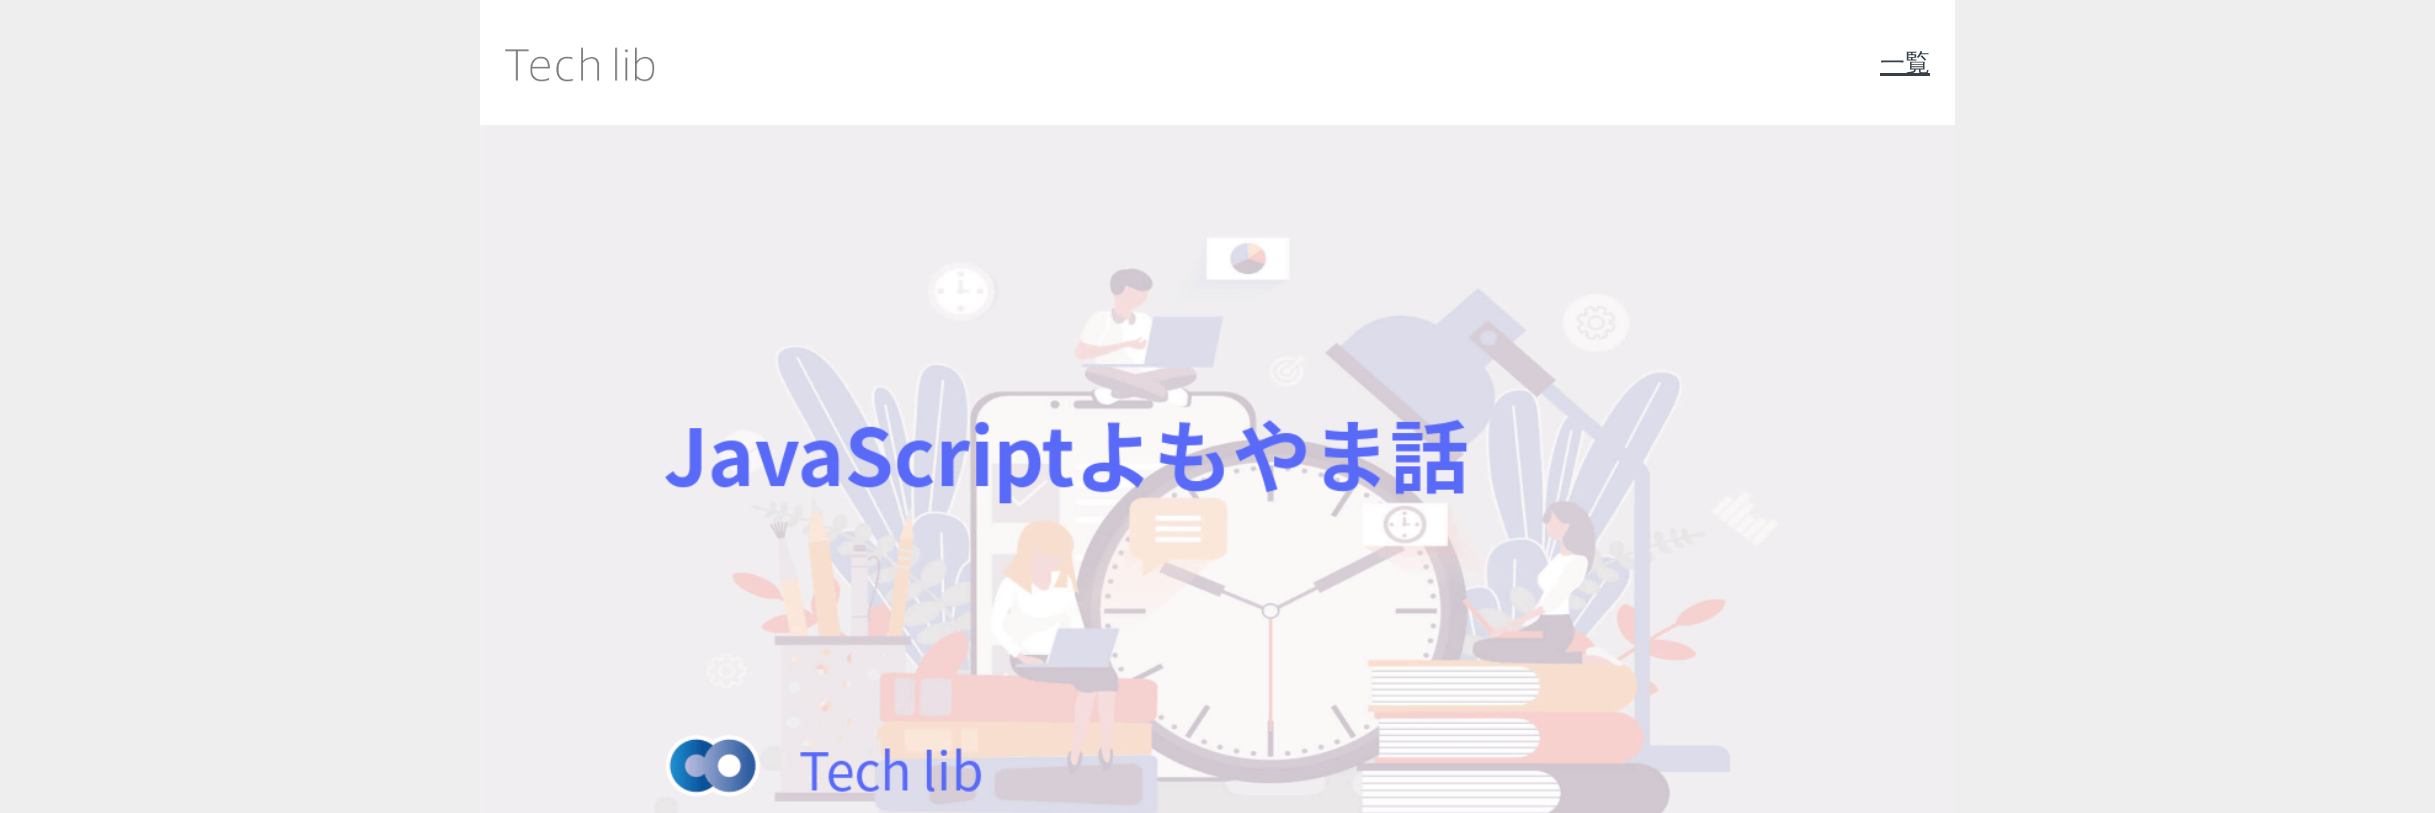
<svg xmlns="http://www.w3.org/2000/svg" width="2435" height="813">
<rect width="100%" height="100%" fill="#eee"/>
<rect x="480" width="1475" height="125" fill="#fff"/>
<image x="505" y="47" width="150" height="35" href="media/1.png"/>
<rect x="1880" y="73" width="50" height="3" fill="#373f49"/>
<text x="1880" y="71" style="font-family:WenQuanYi Zen Hei;font-size:25px;font-weight:500;fill:#373f49">一覧</text>
<image x="480" y="125" width="1475" height="688" href="media/2.png"/>
</svg>
